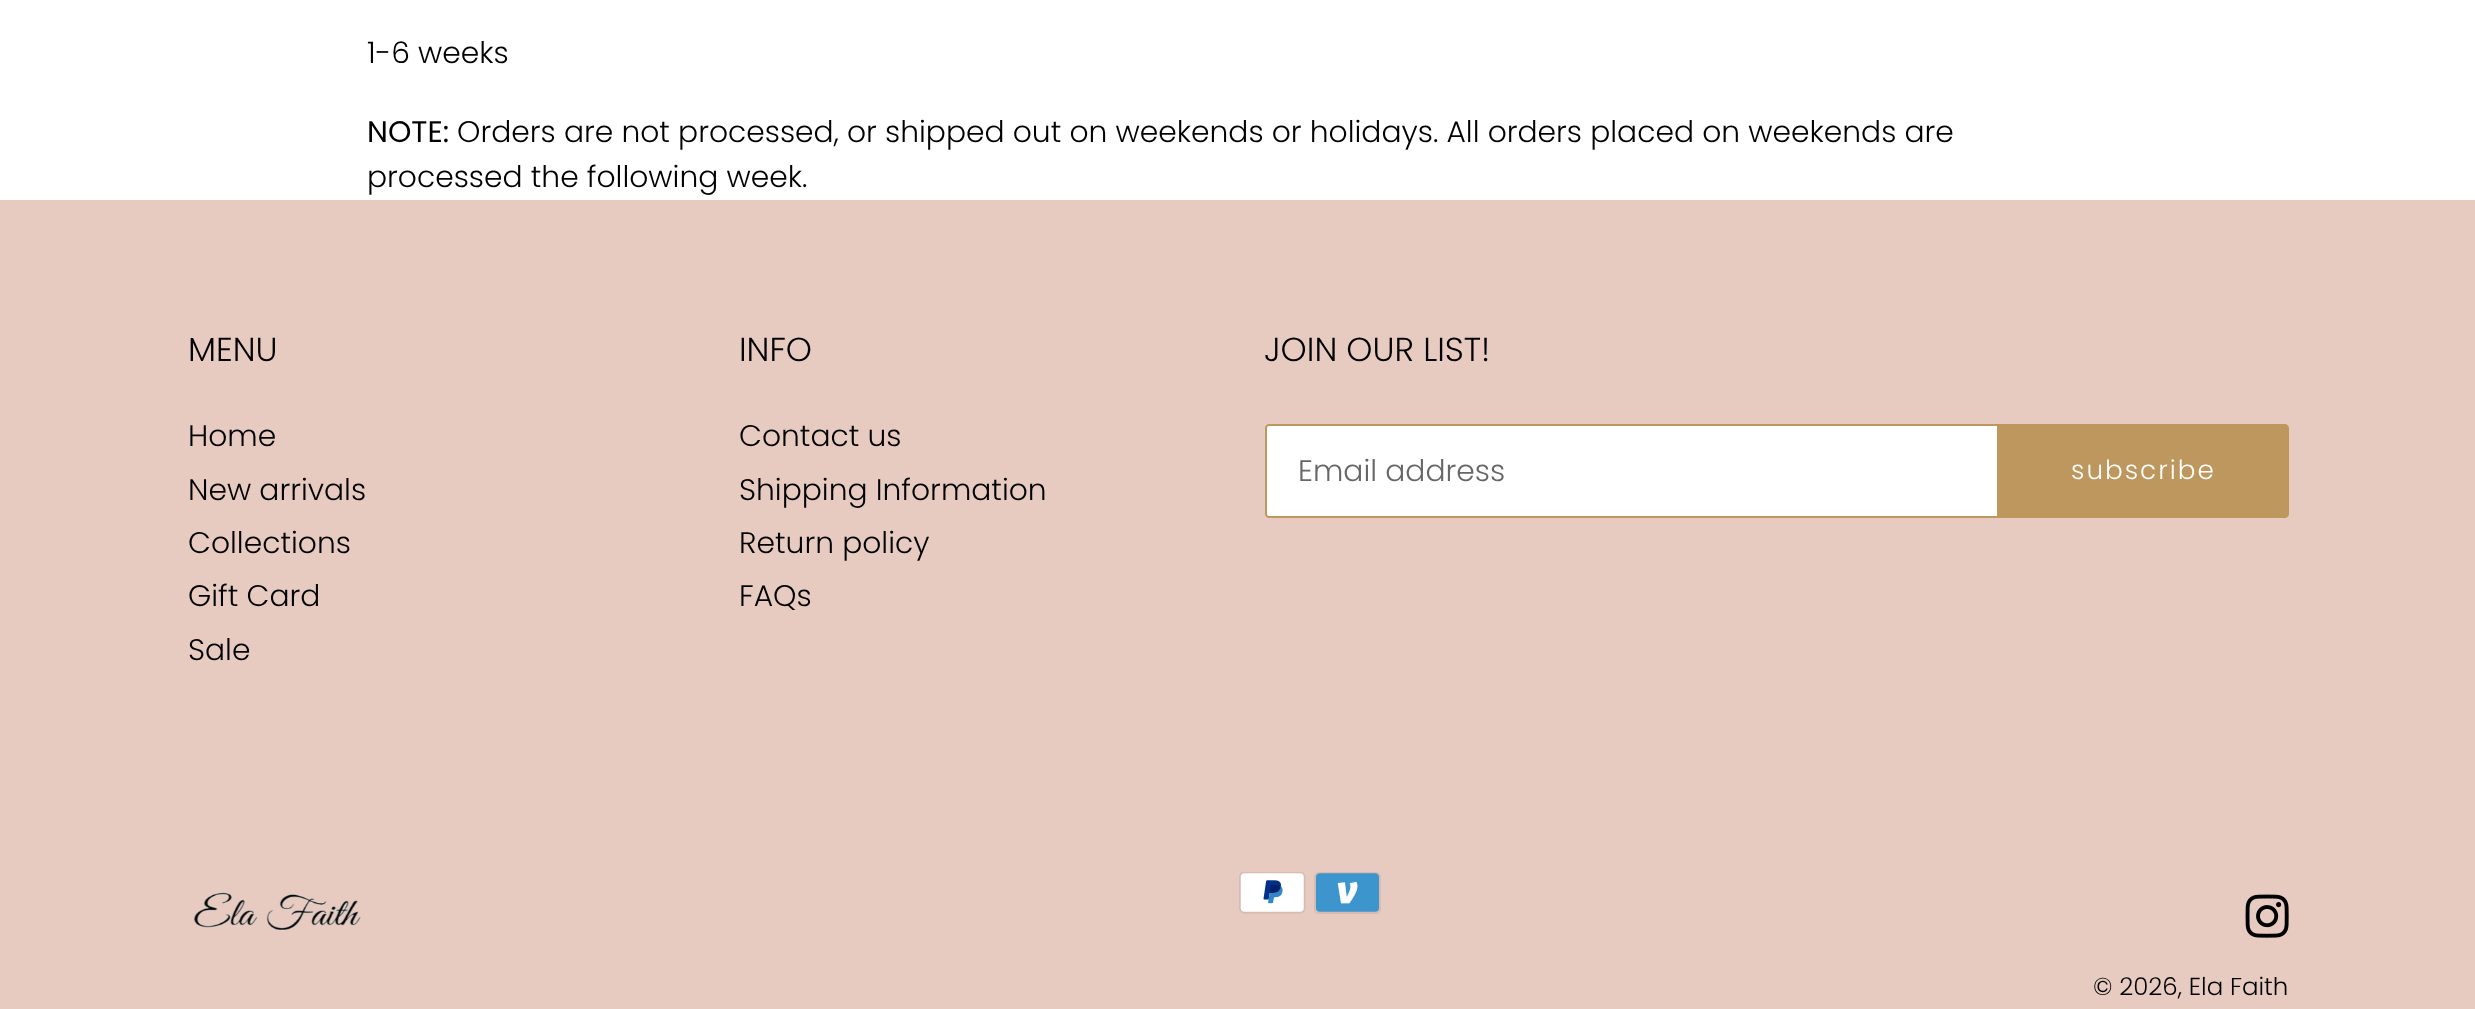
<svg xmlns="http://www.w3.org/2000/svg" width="2475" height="1009">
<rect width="100%" height="100%" fill="#fff"/>
<text x="367" y="63" style="font-family:Poppins;font-size:29.75px;font-weight:300;fill:#000">1-6 weeks</text>
<text x="367" y="142" style="font-family:Poppins;font-size:29.75px;fill:#000">NOTE:</text>
<text x="457" y="142" style="font-family:Poppins;font-size:29.75px;font-weight:300;fill:#000">Orders are not processed, or shipped out on weekends or holidays. All orders placed on weekends are</text>
<text x="367" y="187" style="font-family:Poppins;font-size:29.75px;font-weight:300;fill:#000">processed the following week.</text>
<rect y="200" width="2475" height="809" fill="#e7cbc0"/>
<text x="188" y="361" style="font-family:Poppins;font-size:33.25px;font-weight:300;fill:#000">MENU</text>
<text x="188" y="446" style="font-family:Poppins;font-size:29.75px;font-weight:300;fill:#000">Home</text>
<text x="188" y="500" style="font-family:Poppins;font-size:29.75px;font-weight:300;fill:#000">New arrivals</text>
<text x="188" y="553" style="font-family:Poppins;font-size:29.75px;font-weight:300;fill:#000">Collections</text>
<text x="188" y="606" style="font-family:Poppins;font-size:29.75px;font-weight:300;fill:#000">Gift Card</text>
<text x="188" y="660" style="font-family:Poppins;font-size:29.75px;font-weight:300;fill:#000">Sale</text>
<text x="739" y="361" style="font-family:Poppins;font-size:33.25px;font-weight:300;fill:#000">INFO</text>
<text x="739" y="446" style="font-family:Poppins;font-size:29.75px;font-weight:300;fill:#000">Contact us</text>
<text x="739" y="500" style="font-family:Poppins;font-size:29.75px;font-weight:300;fill:#000">Shipping Information</text>
<text x="739" y="553" style="font-family:Poppins;font-size:29.75px;font-weight:300;fill:#000">Return policy</text>
<text x="739" y="606" style="font-family:Poppins;font-size:29.75px;font-weight:300;fill:#000">FAQs</text>
<text x="1264" y="361" style="font-family:Poppins;font-size:33.25px;font-weight:300;fill:#000">JOIN OUR LIST!</text>
<path d="M1269 425h729v92h-729c-1.5 0-3-1.5-3-3v-86c0-1.5 1.5-3 3-3z" fill="#fff" stroke="#bd975e" stroke-width="2"/>
<text x="1298" y="481" style="font-family:Poppins;font-size:29.75px;font-weight:300;fill:#666">Email address</text>
<path d="M1999 424h286c2 0 4 2 4 4v86c0 2-2 4-4 4h-286z" fill="#bd975e"/>
<text x="2071" y="479" style="font-family:Poppins;font-size:26.25px;font-weight:300;letter-spacing:2px;fill:#fff">subscribe</text>
<image x="193" y="892" width="168" height="39" href="media/1.png"/>
<image x="1239" y="872" width="67" height="42" href="media/2.png"/>
<image x="1314" y="872" width="67" height="42" href="media/3.png"/>
<image x="2245" y="894" width="44" height="44" href="media/4.png"/>
<text x="2093" y="995" style="font-family:Poppins;font-size:24.5px;font-weight:300;fill:#000">© 2026, Ela Faith</text>
</svg>
